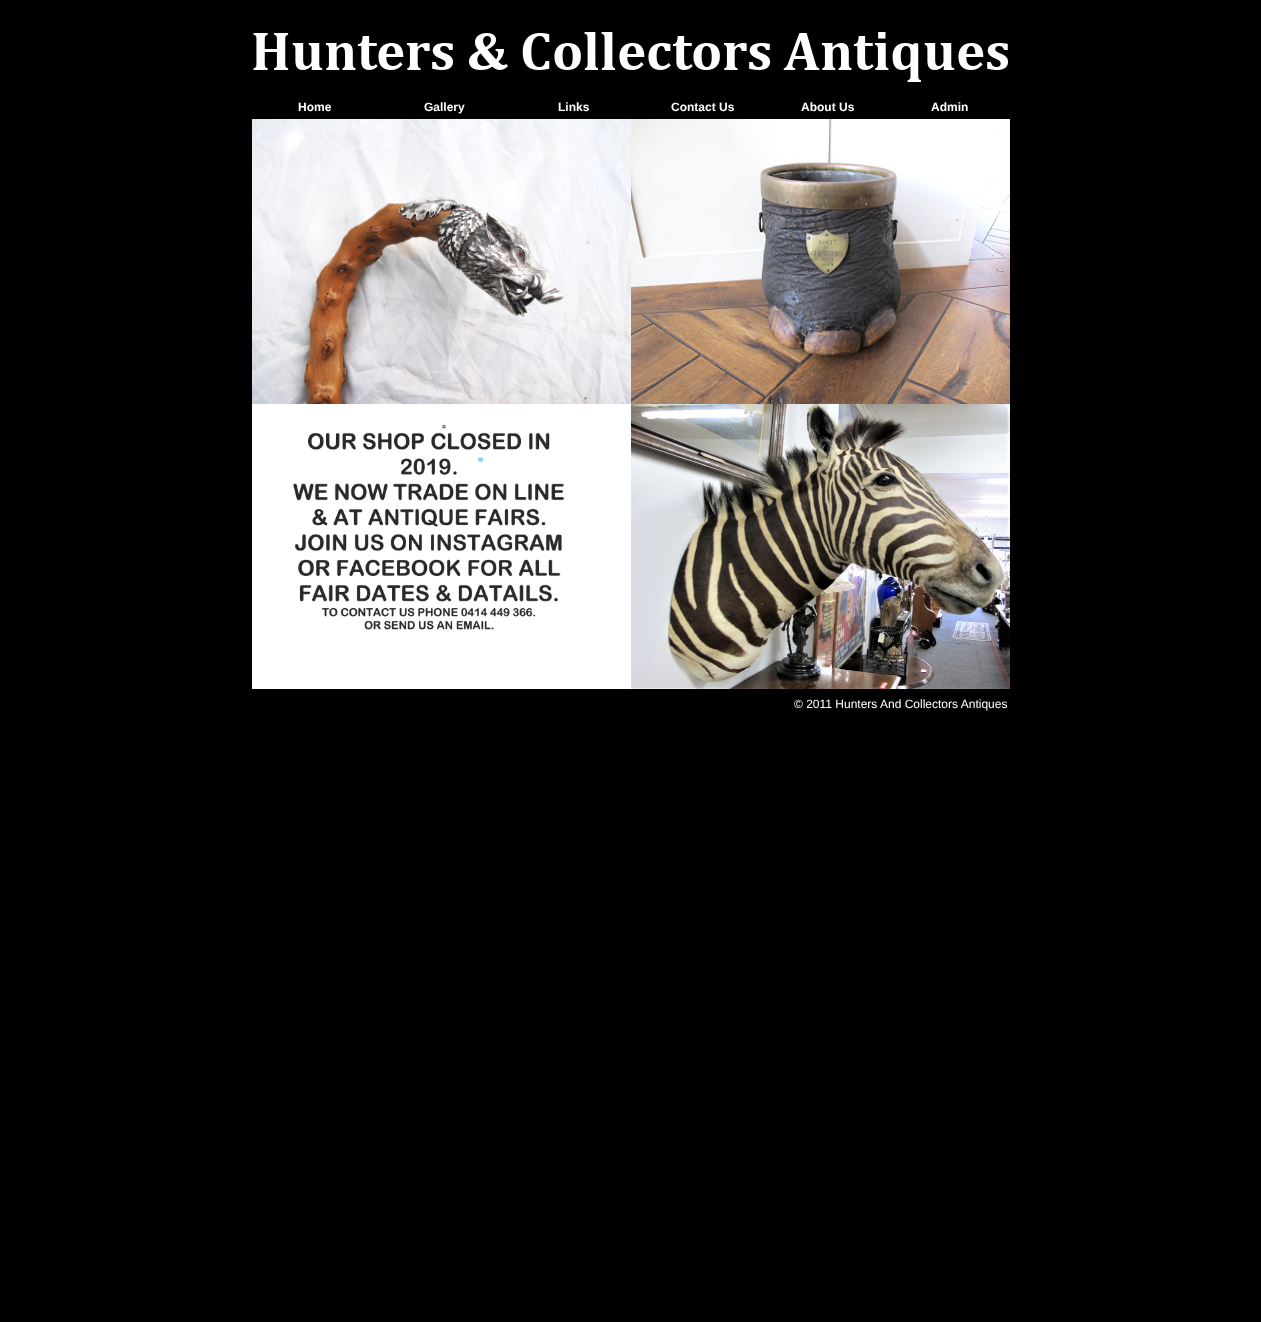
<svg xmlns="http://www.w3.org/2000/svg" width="1261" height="1322">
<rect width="100%" height="100%" fill="#000"/>
<image x="253" y="32" width="755" height="50" href="media/1.png"/>
<text x="298" y="111" style="font-family:Liberation Sans;font-size:12px;font-weight:bold;fill:#fff">Home</text>
<text x="424" y="111" style="font-family:Liberation Sans;font-size:12px;font-weight:bold;fill:#fff">Gallery</text>
<text x="558" y="111" style="font-family:Liberation Sans;font-size:12px;font-weight:bold;fill:#fff">Links</text>
<text x="671" y="111" style="font-family:Liberation Sans;font-size:12px;font-weight:bold;fill:#fff">Contact Us</text>
<text x="801" y="111" style="font-family:Liberation Sans;font-size:12px;font-weight:bold;fill:#fff">About Us</text>
<text x="931" y="111" style="font-family:Liberation Sans;font-size:12px;font-weight:bold;fill:#fff">Admin</text>
<rect x="252" y="404" width="379" height="285" fill="#fff"/>
<image x="252" y="119" width="379" height="285" href="media/2.png"/>
<image x="631" y="119" width="379" height="285" href="media/3.png"/>
<image x="293" y="424" width="272" height="206" href="media/4.png"/>
<image x="631" y="404" width="379" height="285" href="media/5.png"/>
<text x="794" y="708" style="font-family:Liberation Sans;font-size:12px;fill:#fff">© 2011 Hunters And Collectors Antiques</text>
</svg>
